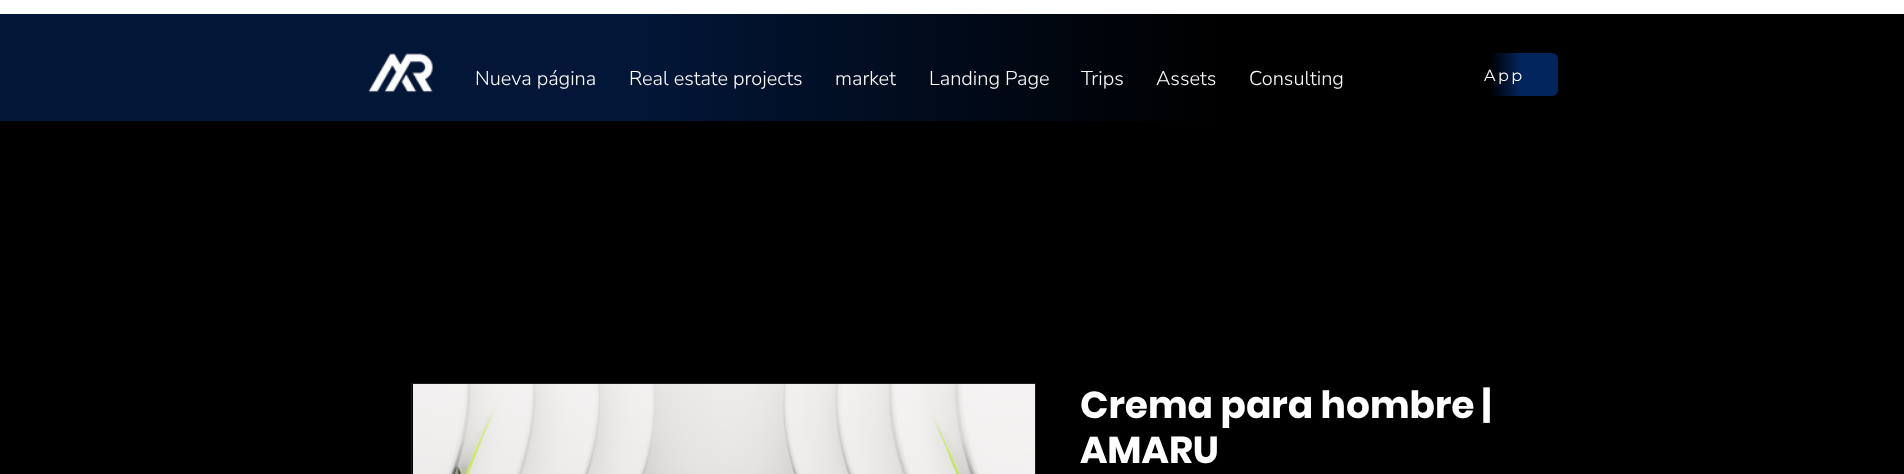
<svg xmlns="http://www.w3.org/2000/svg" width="1904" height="474">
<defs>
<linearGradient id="g1" gradientUnits="userSpaceOnUse" x1="0" y1="68" x2="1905" y2="67"><stop offset="0.34" stop-color="#021637"/><stop offset="0.64" stop-color="#000"/><stop offset="1" stop-color="#000"/></linearGradient>
<linearGradient id="g2" gradientUnits="userSpaceOnUse" x1="1453" y1="74" x2="1558" y2="74"><stop offset="0.35" stop-color="#000"/><stop offset="0.64" stop-color="#03255d"/><stop offset="1" stop-color="#03255d"/></linearGradient>
</defs>
<rect width="100%" height="100%" fill="#fff"/>
<rect y="14" width="1904" height="107" fill="url(#g1)"/>
<image x="368" y="53" width="66" height="40" href="media/1.png"/>
<text x="475" y="85" style="font-family:Nunito Sans;font-size:20px;font-weight:300;fill:#fff">Nueva página</text>
<text x="629" y="85" style="font-family:Nunito Sans;font-size:20px;font-weight:300;fill:#fff">Real estate projects</text>
<text x="835" y="85" style="font-family:Nunito Sans;font-size:20px;font-weight:300;fill:#fff">market</text>
<text x="929" y="85" style="font-family:Nunito Sans;font-size:20px;font-weight:300;fill:#fff">Landing Page</text>
<text x="1081" y="85" style="font-family:Nunito Sans;font-size:20px;font-weight:300;fill:#fff">Trips</text>
<text x="1156" y="85" style="font-family:Nunito Sans;font-size:20px;font-weight:300;fill:#fff">Assets</text>
<text x="1249" y="85" style="font-family:Nunito Sans;font-size:20px;font-weight:300;fill:#fff">Consulting</text>
<rect x="1453" y="53" width="105" height="43" rx="6" fill="url(#g2)"/>
<text x="1484" y="81" style="font-family:Montserrat;font-size:16px;letter-spacing:2.5px;fill:#fff">App</text>
<rect y="121" width="1904" height="353" fill="#000"/>
<rect x="411.5" y="383.5" width="624" height="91" fill="none" stroke="#1b1c1e"/>
<image x="413" y="384" width="622" height="90" href="media/2.png"/>
<text x="1080" y="418" style="font-family:Poppins;font-size:37.5px;font-weight:bold;fill:#fff">Crema para hombre |</text>
<text x="1080" y="463" style="font-family:Poppins;font-size:37.5px;font-weight:bold;fill:#fff">AMARU</text>
</svg>
